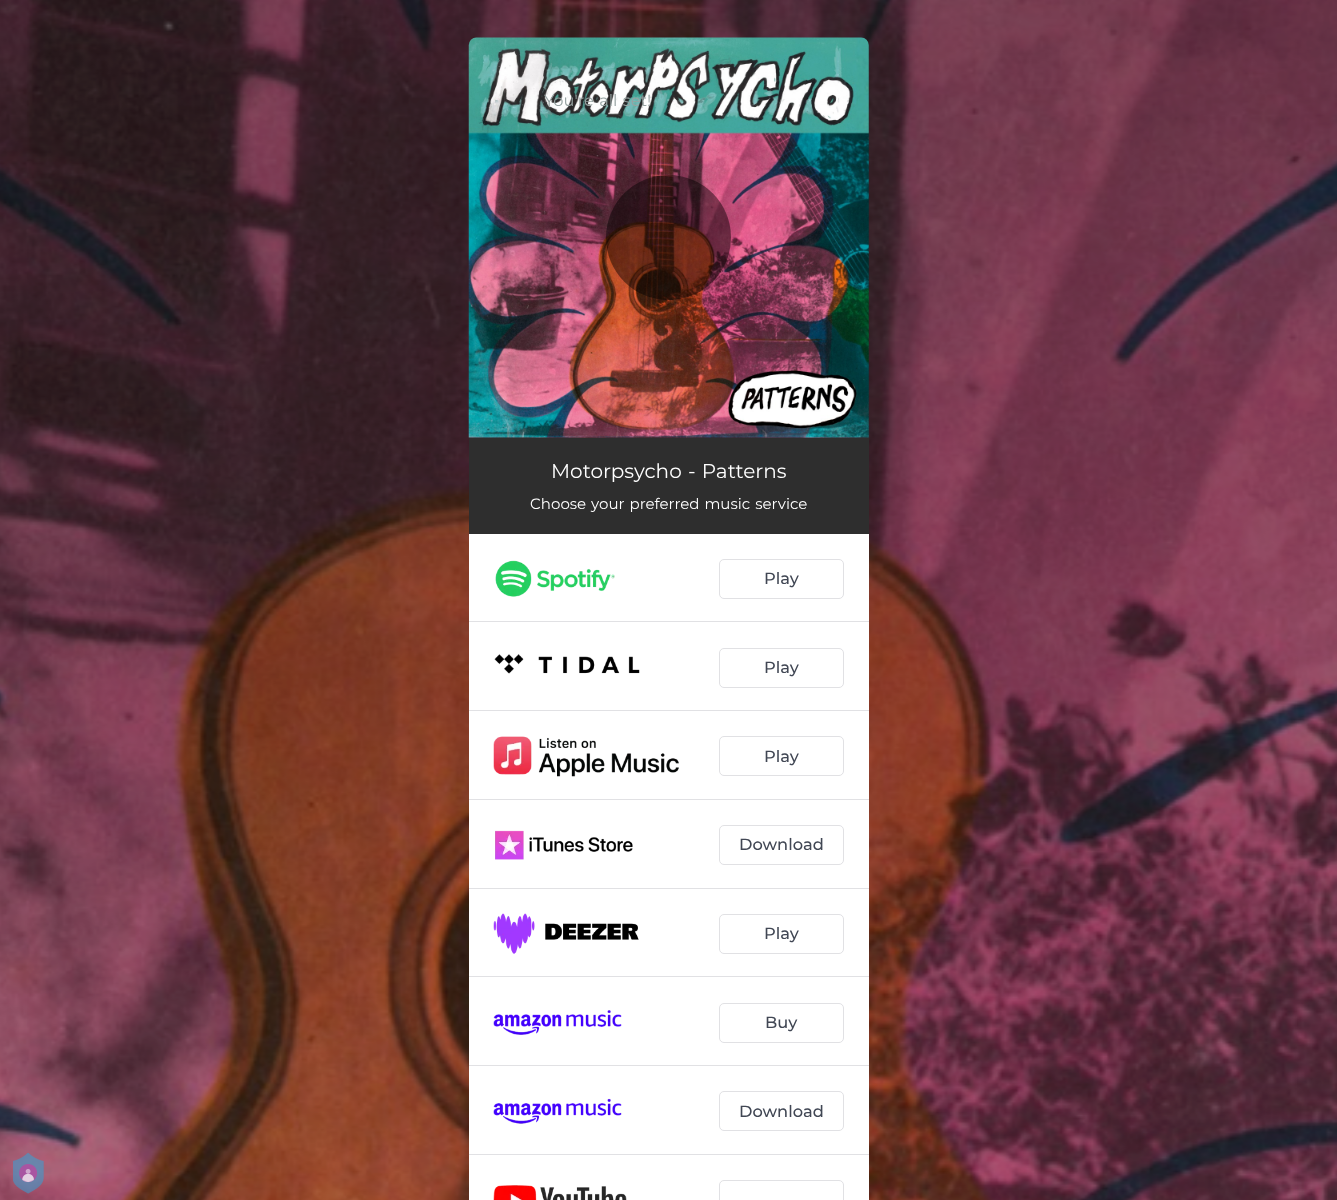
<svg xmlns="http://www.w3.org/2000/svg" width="1337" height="1200">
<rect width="100%" height="100%" fill="#fff"/>
<image x="0" y="0" width="1337" height="1200" href="media/1.png"/>
<image x="468" y="37" width="401" height="401" href="media/2.png"/>
<circle cx="668.5" cy="237.5" r="62.5" fill="#00000073"/>
<text x="544" y="106" word-spacing="1" style="font-family:Montserrat;font-size:16.25px;fill:#97a3a2">You're all set!</text>
<rect x="469" y="438" width="400" height="96" fill="#2e2e2e"/>
<text x="551" y="478" word-spacing="1" style="font-family:Montserrat;font-size:20px;fill:#fff">Motorpsycho - Patterns</text>
<text x="530" y="509" word-spacing="1" style="font-family:Montserrat;font-size:15px;fill:#fff">Choose your preferred music service</text>
<rect x="469" y="534" width="400" height="666" fill="#fff"/>
<rect x="469" y="621" width="400" height="1" fill="#e1e1e4"/>
<image x="495" y="560" width="120" height="37" href="media/3.png"/>
<rect x="719.5" y="559.5" width="124" height="39" rx="4.5" fill="none" stroke="#e1e1e4"/>
<text x="764" y="584" style="font-family:Montserrat;font-size:16.25px;font-weight:500;fill:#414754">Play</text>
<rect x="469" y="710" width="400" height="1" fill="#e1e1e4"/>
<image x="494" y="654" width="146" height="20" href="media/4.png"/>
<rect x="719.5" y="648.5" width="124" height="39" rx="4.5" fill="none" stroke="#e1e1e4"/>
<text x="764" y="673" style="font-family:Montserrat;font-size:16.25px;font-weight:500;fill:#414754">Play</text>
<rect x="469" y="799" width="400" height="1" fill="#e1e1e4"/>
<image x="493" y="736" width="186" height="41" href="media/5.png"/>
<rect x="719.5" y="736.5" width="124" height="39" rx="4.5" fill="none" stroke="#e1e1e4"/>
<text x="764" y="762" style="font-family:Montserrat;font-size:16.25px;font-weight:500;fill:#414754">Play</text>
<rect x="469" y="888" width="400" height="1" fill="#e1e1e4"/>
<image x="495" y="830" width="138" height="30" href="media/6.png"/>
<rect x="719.5" y="825.5" width="124" height="39" rx="4.5" fill="none" stroke="#e1e1e4"/>
<text x="739" y="850" style="font-family:Montserrat;font-size:16.25px;font-weight:500;fill:#414754">Download</text>
<rect x="469" y="976" width="400" height="1" fill="#e1e1e4"/>
<image x="493" y="913" width="146" height="41" href="media/7.png"/>
<rect x="719.5" y="914.5" width="124" height="39" rx="4.5" fill="none" stroke="#e1e1e4"/>
<text x="764" y="939" style="font-family:Montserrat;font-size:16.25px;font-weight:500;fill:#414754">Play</text>
<rect x="469" y="1065" width="400" height="1" fill="#e1e1e4"/>
<image x="493" y="1010" width="129" height="25" href="media/8.png"/>
<rect x="719.5" y="1003.5" width="124" height="39" rx="4.5" fill="none" stroke="#e1e1e4"/>
<text x="765" y="1028" style="font-family:Montserrat;font-size:16.25px;font-weight:500;fill:#414754">Buy</text>
<rect x="469" y="1154" width="400" height="1" fill="#e1e1e4"/>
<image x="493" y="1098" width="129" height="26" href="media/9.png"/>
<rect x="719.5" y="1091.5" width="124" height="39" rx="4.5" fill="none" stroke="#e1e1e4"/>
<text x="739" y="1117" style="font-family:Montserrat;font-size:16.25px;font-weight:500;fill:#414754">Download</text>
<image x="493" y="1185" width="134" height="15" href="media/10.png"/>
<rect x="719.5" y="1180.5" width="124" height="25" rx="4.5" fill="none" stroke="#e1e1e4"/>
<image x="13" y="1153" width="31" height="41" href="media/11.png"/>
</svg>
